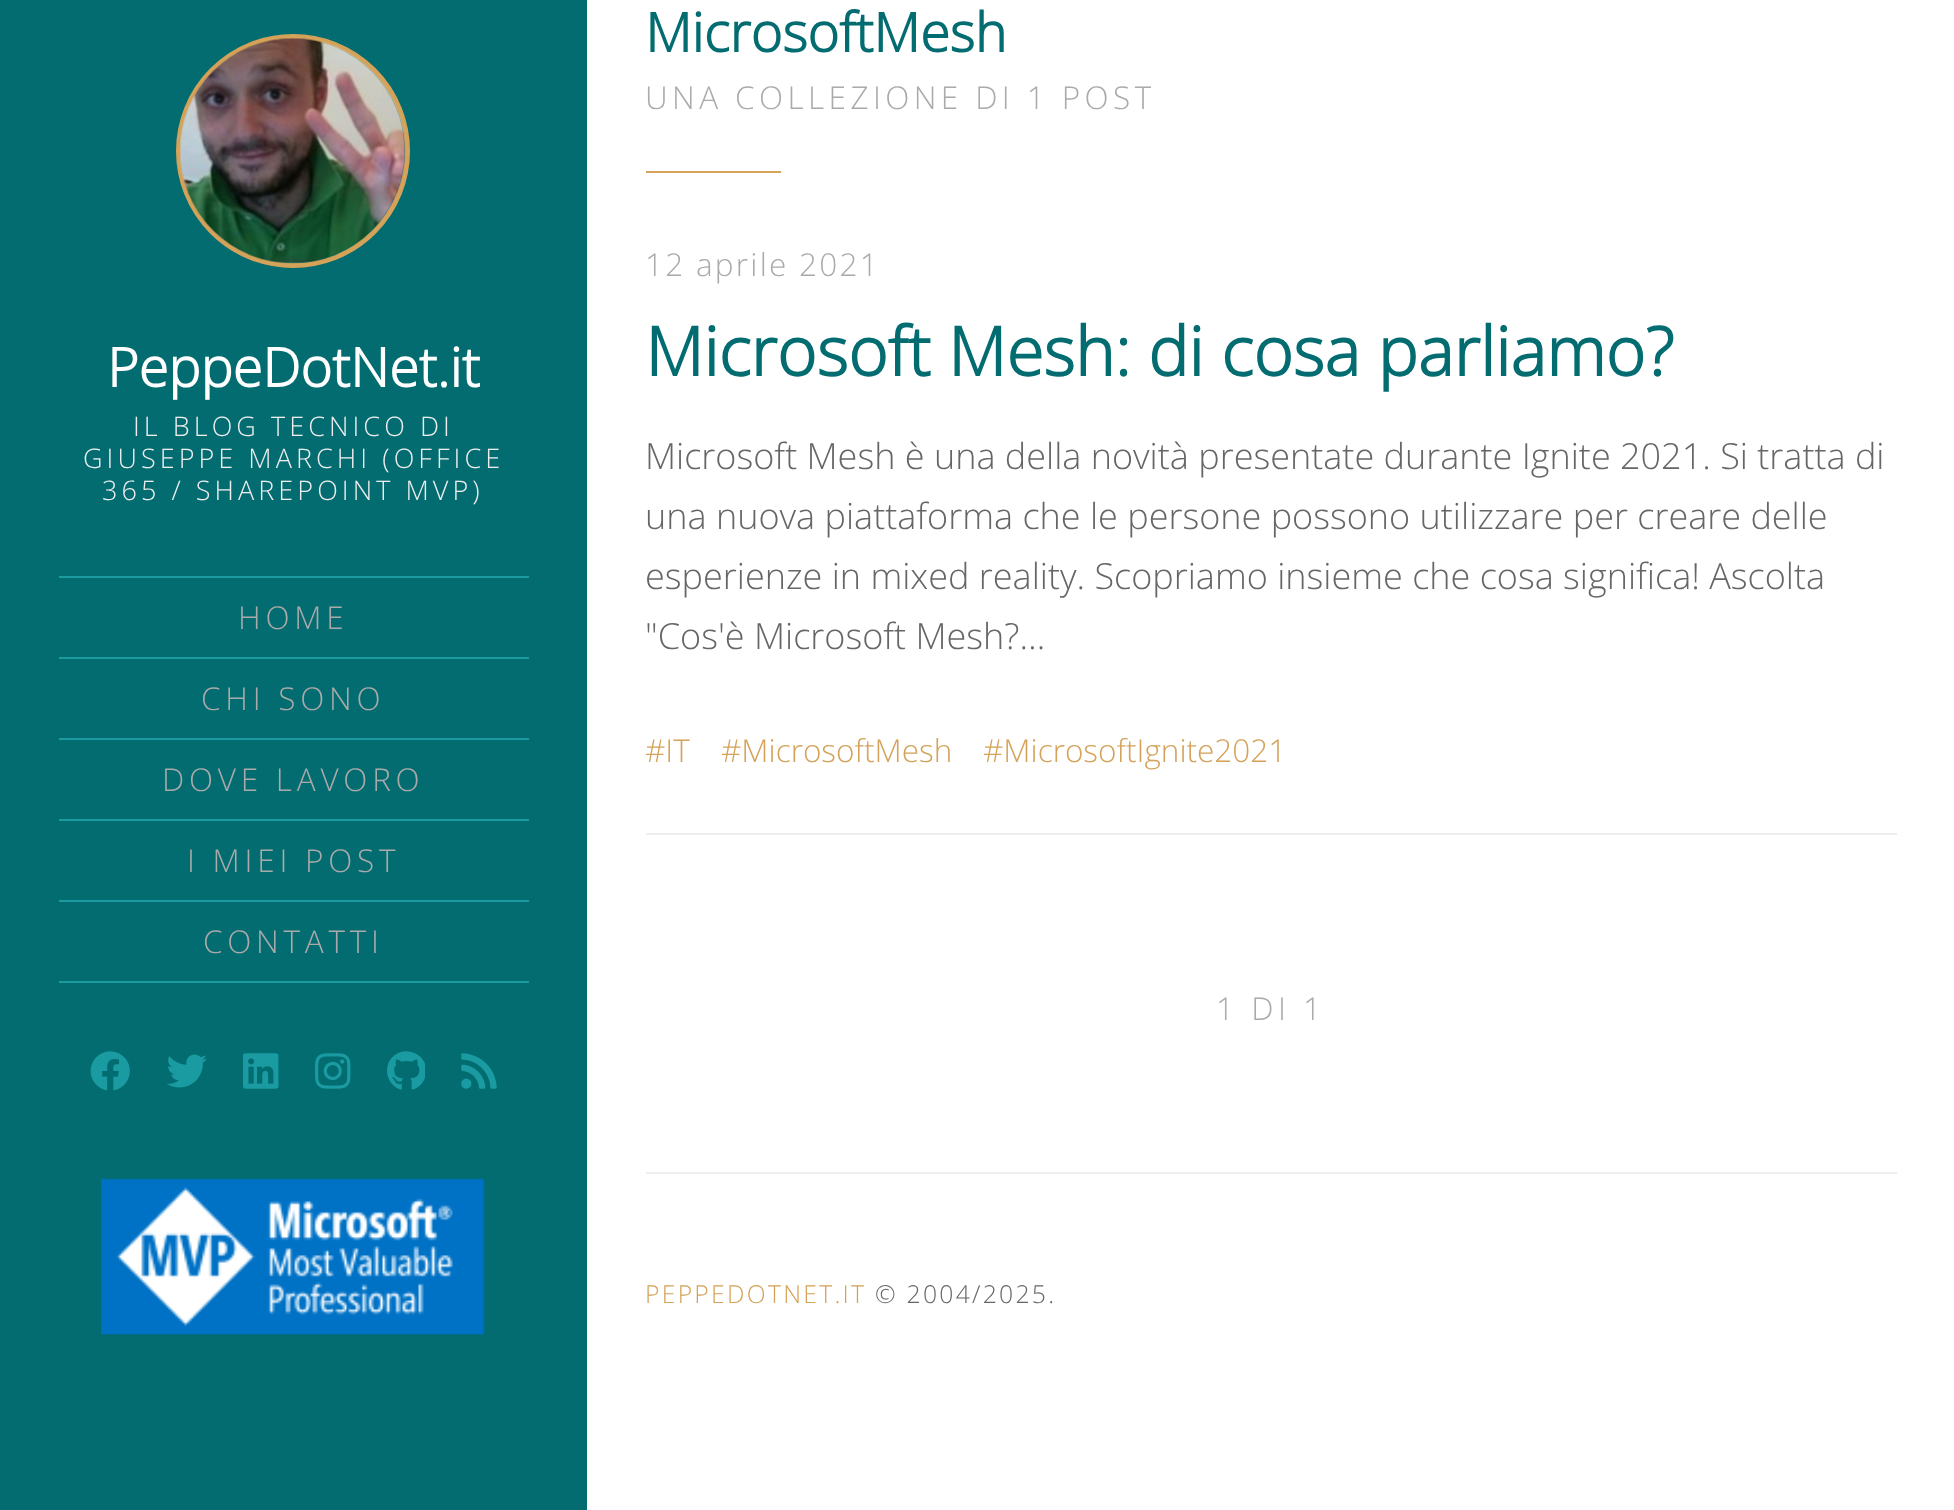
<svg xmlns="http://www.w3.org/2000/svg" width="1954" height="1510">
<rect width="100%" height="100%" fill="#fff"/>
<rect width="587" height="1510" fill="#036c70"/>
<circle cx="293" cy="151" r="114.5" fill="none" stroke="#d4a259" stroke-width="5"/>
<image x="179" y="38" width="227" height="226" href="media/1.png"/>
<text x="107" y="387" style="font-family:Open Sans;font-size:54px;font-weight:bold;fill:#fff">PeppeDotNet.it</text>
<text x="133" y="436" style="font-family:Open Sans;font-size:27px;font-weight:300;letter-spacing:4.05px;fill:#eee">IL BLOG TECNICO DI</text>
<text x="83" y="468" style="font-family:Open Sans;font-size:27px;font-weight:300;letter-spacing:4.05px;fill:#eee">GIUSEPPE MARCHI (OFFICE</text>
<text x="102" y="500" style="font-family:Open Sans;font-size:27px;font-weight:300;letter-spacing:4.05px;fill:#eee">365 / SHAREPOINT MVP)</text>
<rect x="59" y="981" width="470" height="2" fill="#1a9ba1"/>
<rect x="59" y="576" width="470" height="2" fill="#1a9ba1"/>
<text x="238" y="629" style="font-family:Open Sans;font-size:31.5px;font-weight:300;letter-spacing:4.75px;fill:#aaa">HOME</text>
<rect x="59" y="657" width="470" height="2" fill="#1a9ba1"/>
<text x="201" y="710" style="font-family:Open Sans;font-size:31.5px;font-weight:300;letter-spacing:4.75px;fill:#aaa">CHI SONO</text>
<rect x="59" y="738" width="470" height="2" fill="#1a9ba1"/>
<text x="162" y="791" style="font-family:Open Sans;font-size:31.5px;font-weight:300;letter-spacing:4.75px;fill:#aaa">DOVE LAVORO</text>
<rect x="59" y="819" width="470" height="2" fill="#1a9ba1"/>
<text x="187" y="872" style="font-family:Open Sans;font-size:31.5px;font-weight:300;letter-spacing:4.75px;fill:#aaa">I MIEI POST</text>
<rect x="59" y="900" width="470" height="2" fill="#1a9ba1"/>
<text x="203" y="953" style="font-family:Open Sans;font-size:31.5px;font-weight:300;letter-spacing:4.75px;fill:#aaa">CONTATTI</text>
<image x="90" y="1051" width="40" height="40" href="media/2.png"/>
<image x="167" y="1054" width="40" height="34" href="media/3.png"/>
<image x="243" y="1053" width="36" height="36" href="media/4.png"/>
<image x="315" y="1053" width="36" height="36" href="media/5.png"/>
<image x="387" y="1051" width="38" height="39" href="media/6.png"/>
<image x="461" y="1053" width="36" height="36" href="media/7.png"/>
<image x="101" y="1178" width="384" height="157" href="media/8.png"/>
<text x="645" y="52" style="font-family:Open Sans;font-size:54px;font-weight:bold;fill:#036c70">MicrosoftMesh</text>
<text x="645" y="109" style="font-family:Open Sans;font-size:31.5px;font-weight:300;letter-spacing:4.4px;fill:#aaa">UNA COLLEZIONE DI 1 POST</text>
<rect x="646" y="171" width="135" height="2" fill="#d4a259"/>
<rect x="646" y="833" width="1251" height="2" fill="#eee"/>
<text x="645" y="276" style="font-family:Open Sans;font-size:31.5px;font-weight:300;letter-spacing:2.25px;fill:#aaa">12 aprile 2021</text>
<text x="645" y="376" style="font-family:Open Sans;font-size:67.5px;font-weight:bold;fill:#036c70">Microsoft Mesh: di cosa parliamo?</text>
<text x="645" y="469" style="font-family:Open Sans;font-size:36px;font-weight:300;fill:#666">Microsoft Mesh è una della novità presentate durante Ignite 2021. Si tratta di</text>
<text x="645" y="529" style="font-family:Open Sans;font-size:36px;font-weight:300;fill:#666">una nuova piattaforma che le persone possono utilizzare per creare delle</text>
<text x="645" y="589" style="font-family:Open Sans;font-size:36px;font-weight:300;fill:#666">esperienze in mixed reality. Scopriamo insieme che cosa significa! Ascolta</text>
<text x="645" y="649" style="font-family:Open Sans;font-size:36px;font-weight:300;fill:#666">"Cos'è Microsoft Mesh?…</text>
<text x="645" y="762" style="font-family:Open Sans;font-size:31.5px;font-weight:300;fill:#d4a259">#IT</text>
<text x="721" y="762" style="font-family:Open Sans;font-size:31.5px;font-weight:300;fill:#d4a259">#MicrosoftMesh</text>
<text x="983" y="762" style="font-family:Open Sans;font-size:31.5px;font-weight:300;fill:#d4a259">#MicrosoftIgnite2021</text>
<text x="1216" y="1020" style="font-family:Open Sans;font-size:31.5px;font-weight:300;letter-spacing:4.5px;fill:#aaa">1 DI 1</text>
<rect x="646" y="1172" width="1251" height="2" fill="#eee"/>
<text x="645" y="1303" style="font-family:Open Sans;font-size:24.75px;font-weight:300;letter-spacing:2.25px;fill:#d4a259">PEPPEDOTNET.IT</text>
<text x="875" y="1303" style="font-family:Open Sans;font-size:24.75px;font-weight:300;letter-spacing:2.25px;fill:#666">© 2004/2025.</text>
</svg>
